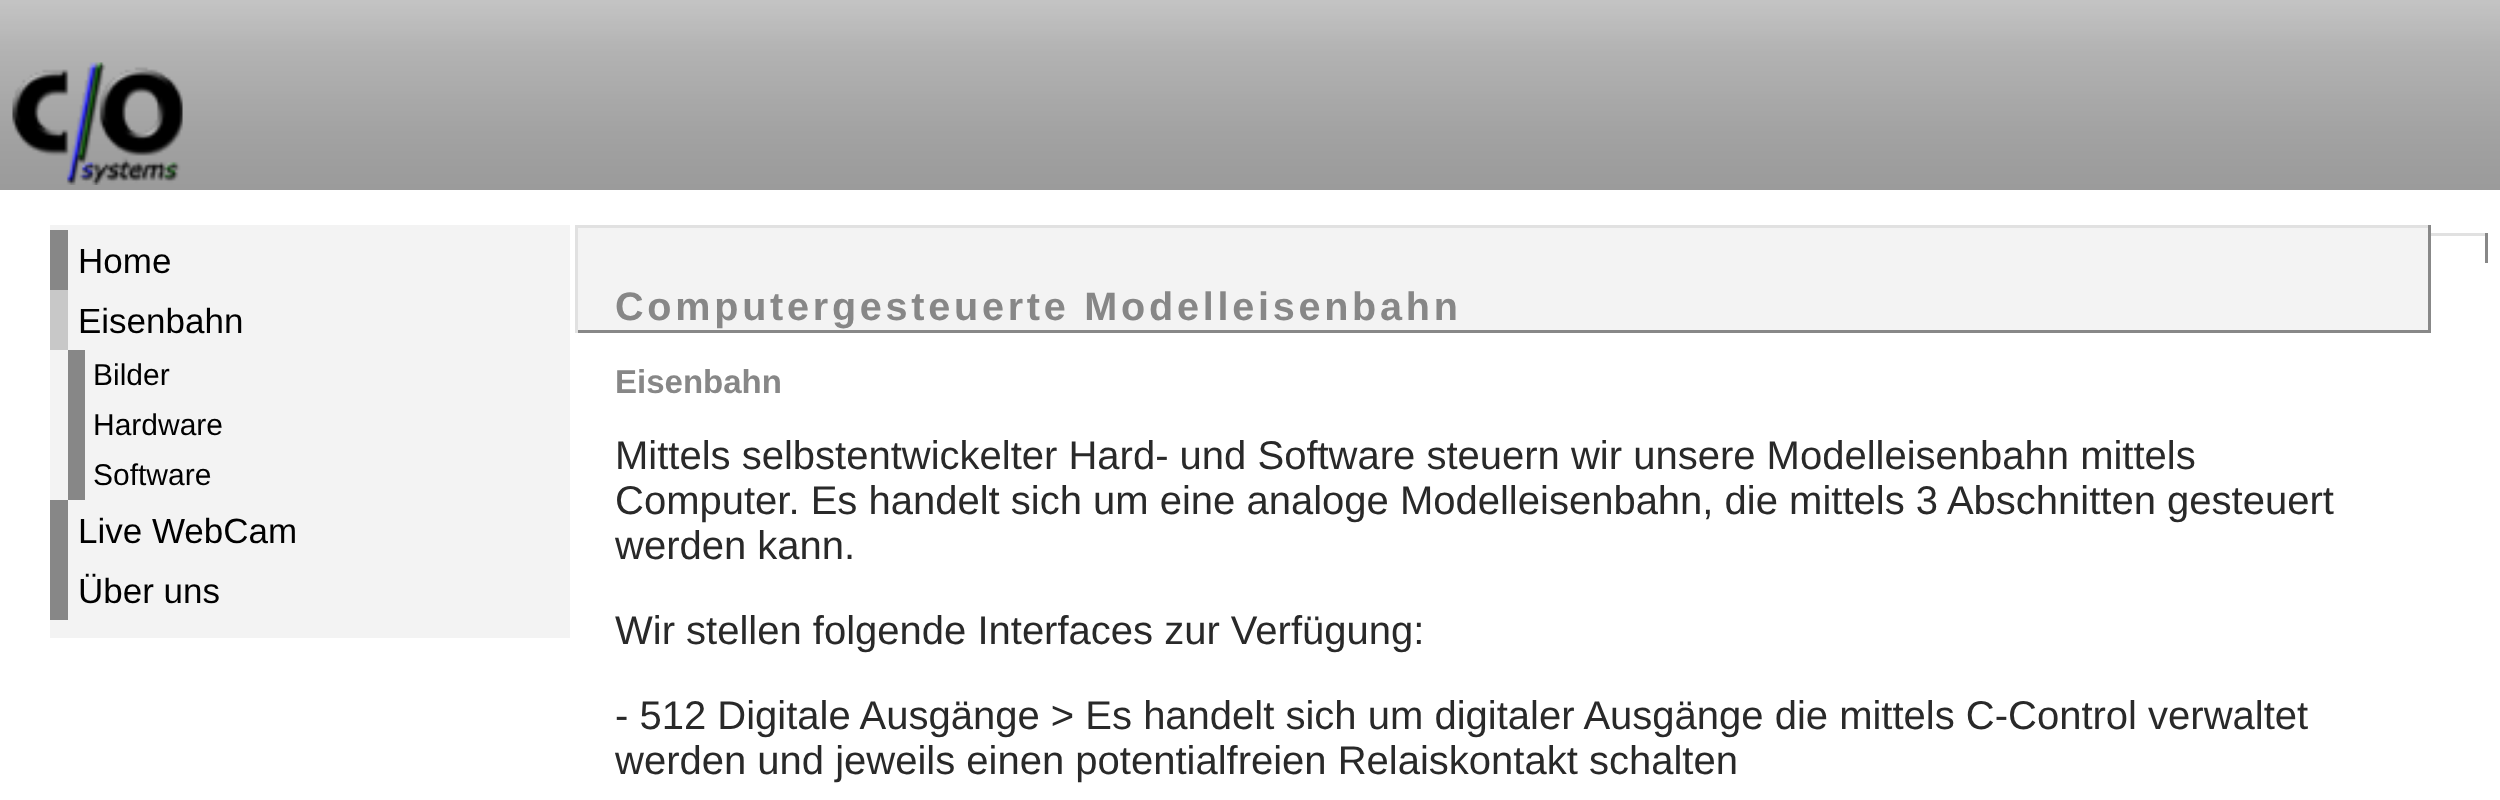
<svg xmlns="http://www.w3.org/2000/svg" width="2500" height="800">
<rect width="100%" height="100%" fill="#fff"/>
<image x="0" y="0" width="2500" height="190" href="media/1.png"/>
<image x="12" y="62" width="171" height="123" href="media/2.png"/>
<rect x="2431" y="233" width="57" height="3" fill="#e1e1e1"/>
<rect x="2485" y="233" width="3" height="30" fill="#888"/>
<rect x="50" y="225" width="520" height="413" fill="#f3f3f3"/>
<rect x="50" y="230" width="18" height="60" fill="#878787"/>
<text x="78" y="273" style="font-family:Liberation Sans;font-size:35px;fill:#000">Home</text>
<rect x="50" y="290" width="18" height="60" fill="#c8c8c8"/>
<text x="78" y="333" style="font-family:Liberation Sans;font-size:35px;fill:#000">Eisenbahn</text>
<rect x="68" y="350" width="17" height="150" fill="#878787"/>
<text x="93" y="385" style="font-family:Liberation Sans;font-size:30px;fill:#000">Bilder</text>
<text x="93" y="435" style="font-family:Liberation Sans;font-size:30px;fill:#000">Hardware</text>
<text x="93" y="485" style="font-family:Liberation Sans;font-size:30px;fill:#000">Software</text>
<rect x="50" y="500" width="18" height="120" fill="#878787"/>
<text x="78" y="543" style="font-family:Liberation Sans;font-size:35px;fill:#000">Live WebCam</text>
<text x="78" y="603" style="font-family:Liberation Sans;font-size:35px;fill:#000">Über uns</text>
<rect x="578" y="228" width="1850" height="102" fill="#f3f3f3"/>
<rect x="575" y="225" width="1855" height="3" fill="#e1e1e1"/>
<rect x="2428" y="225" width="3" height="108" fill="#888"/>
<rect x="575" y="330" width="1855" height="3" fill="#888"/>
<rect x="575" y="225" width="3" height="108" fill="#e1e1e1"/>
<text x="615" y="320" style="font-family:Liberation Sans;font-size:39.6px;font-weight:bold;letter-spacing:3.75px;fill:#878787">Computergesteuerte Modelleisenbahn</text>
<text x="615" y="393" style="font-family:Liberation Sans;font-size:33px;font-weight:bold;fill:#878787">Eisenbahn</text>
<text x="615" y="469" style="font-family:Liberation Sans;font-size:40px;fill:#292929">Mittels selbstentwickelter Hard- und Software steuern wir unsere Modelleisenbahn mittels</text>
<text x="615" y="514" style="font-family:Liberation Sans;font-size:40px;fill:#292929">Computer. Es handelt sich um eine analoge Modelleisenbahn, die mittels 3 Abschnitten gesteuert</text>
<text x="615" y="559" style="font-family:Liberation Sans;font-size:40px;fill:#292929">werden kann.</text>
<text x="615" y="644" style="font-family:Liberation Sans;font-size:40px;fill:#292929">Wir stellen folgende Interfaces zur Verfügung:</text>
<text x="615" y="729" style="font-family:Liberation Sans;font-size:40px;fill:#292929">- 512 Digitale Ausgänge &gt; Es handelt sich um digitaler Ausgänge die mittels C-Control verwaltet</text>
<text x="615" y="774" style="font-family:Liberation Sans;font-size:40px;fill:#292929">werden und jeweils einen potentialfreien Relaiskontakt schalten</text>
</svg>
